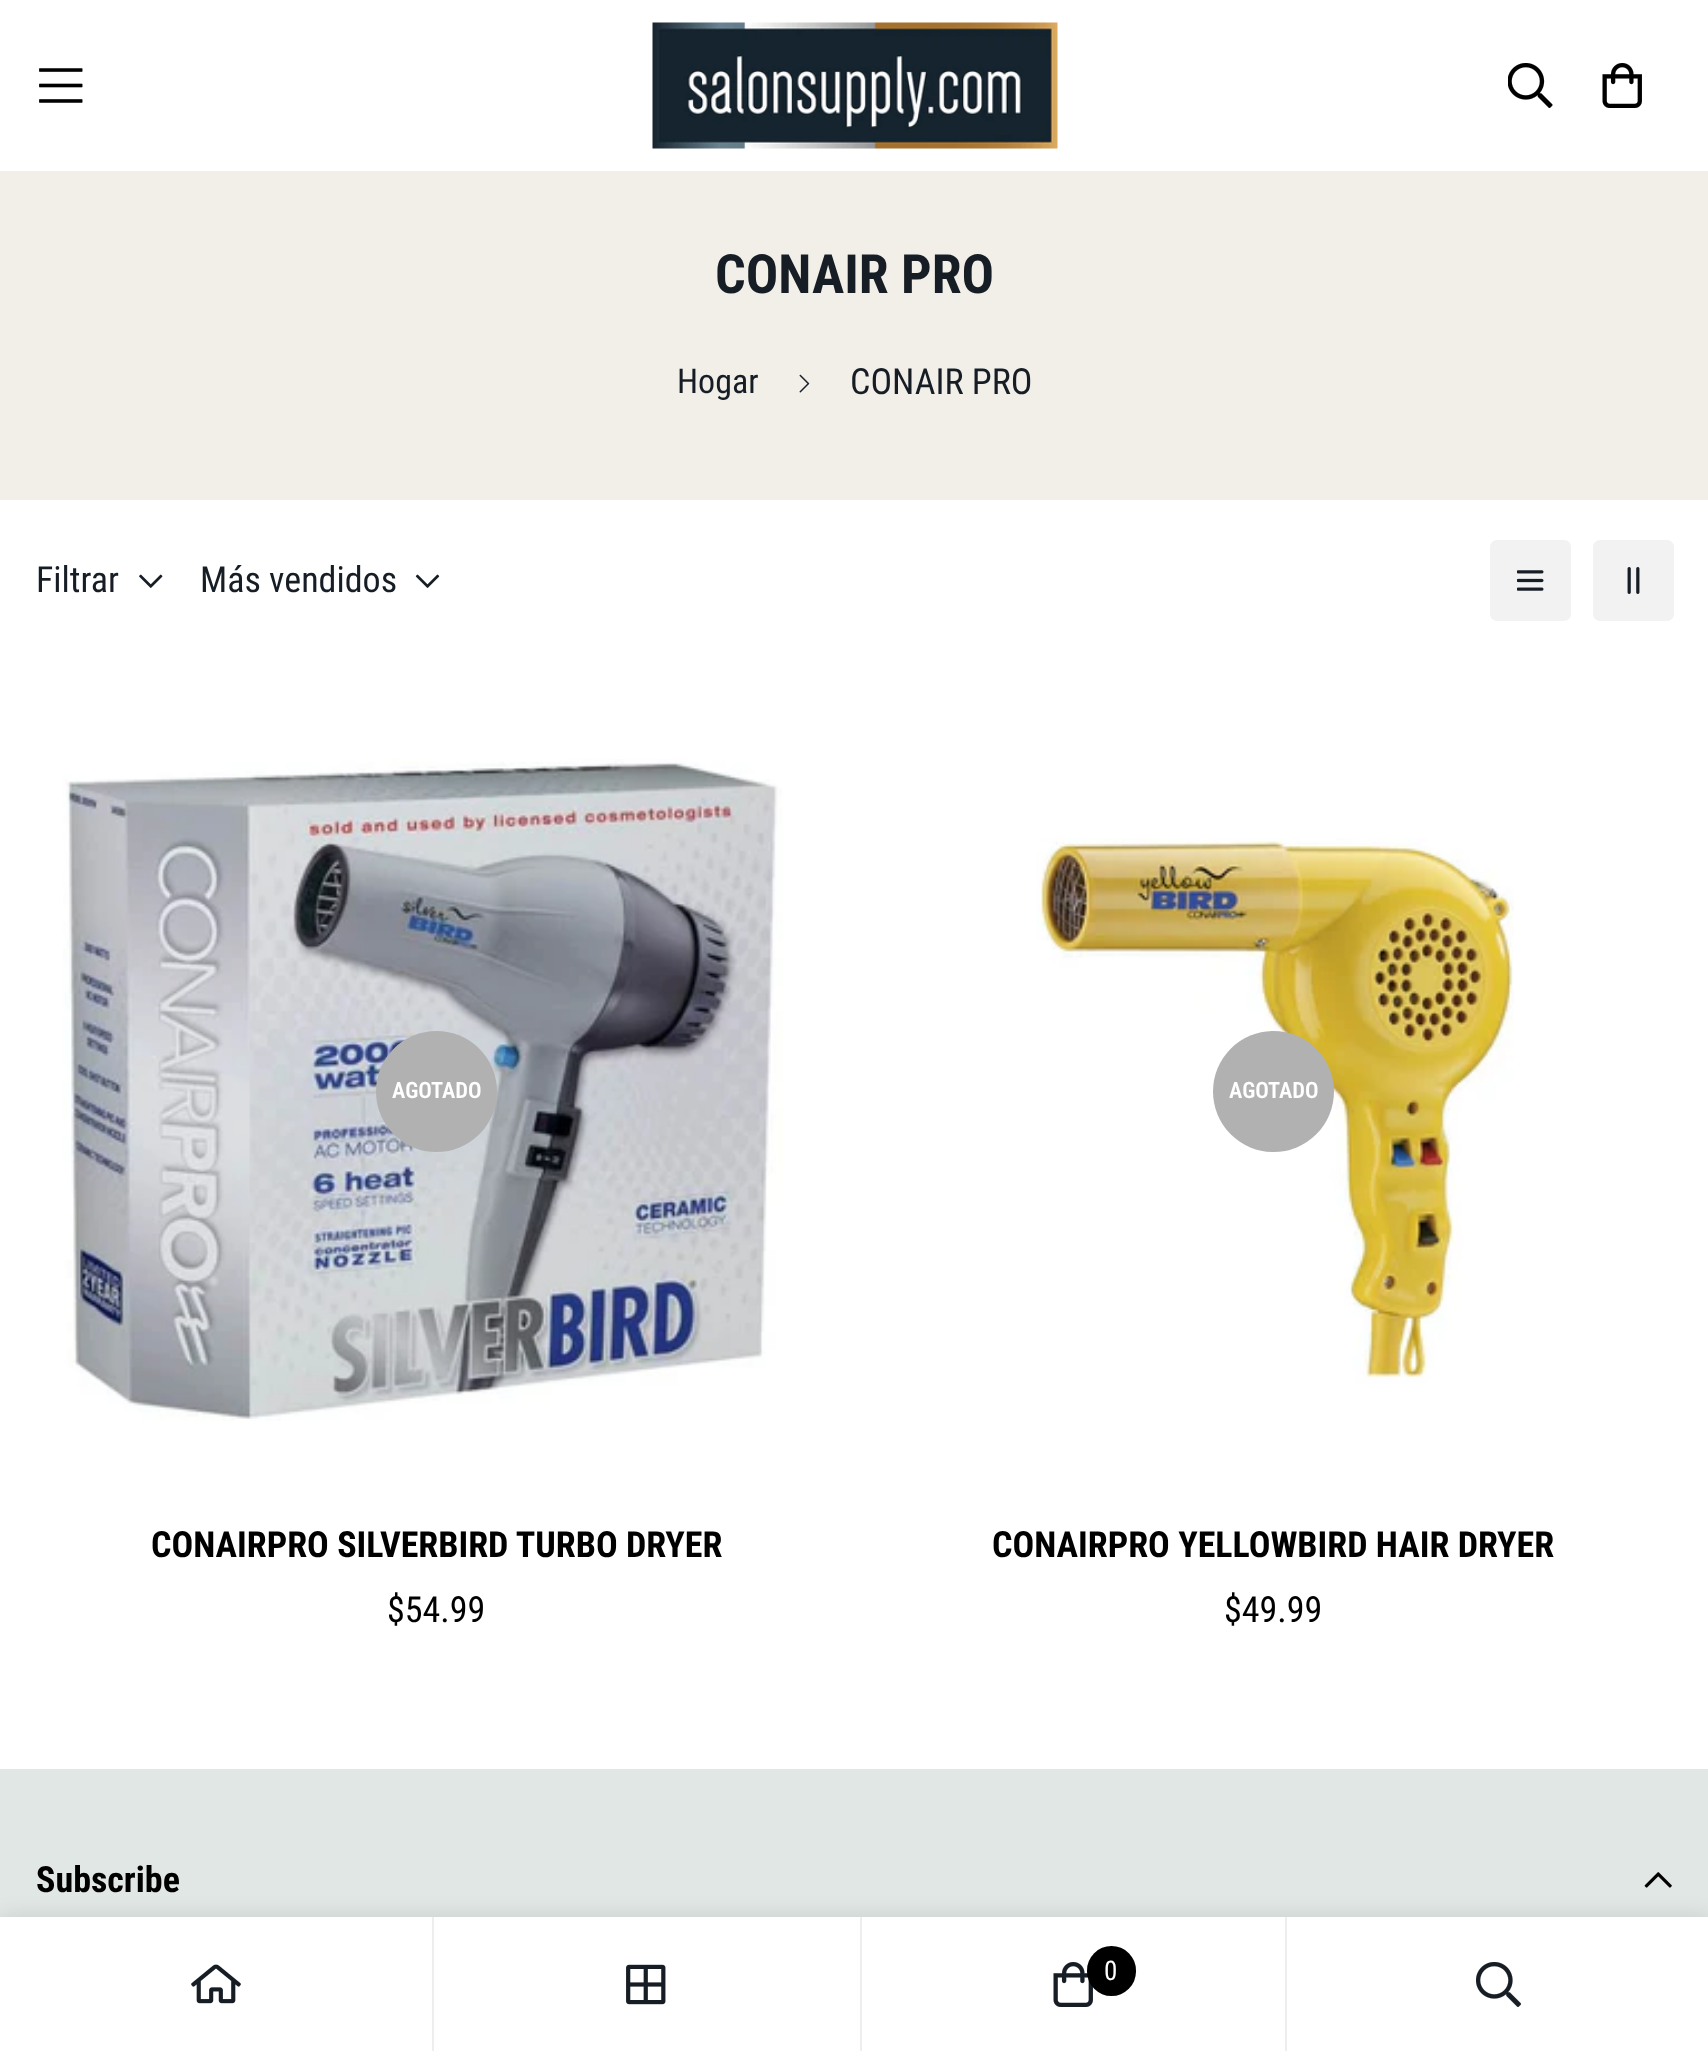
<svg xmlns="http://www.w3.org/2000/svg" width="1708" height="2051">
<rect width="100%" height="100%" fill="#fff"/>
<image x="39" y="68" width="44" height="35" href="media/1.png"/>
<image x="652" y="22" width="406" height="127" href="media/2.png"/>
<image x="1508" y="63" width="45" height="45" href="media/3.png"/>
<image x="1602" y="63" width="40" height="45" href="media/4.png"/>
<rect y="171" width="1708" height="329" fill="#f1efe8"/>
<text x="715" y="293" style="font-family:Roboto Condensed;font-size:54px;font-weight:bold;fill:#161d25">CONAIR PRO</text>
<text x="677" y="393" style="font-family:Roboto Condensed;font-size:34px;fill:#161d25">Hogar</text>
<image x="799" y="374" width="11" height="19" href="media/5.png"/>
<text x="850" y="394" style="font-family:Roboto Condensed;font-size:36px;fill:#161d25">CONAIR PRO</text>
<text x="36" y="592" style="font-family:Roboto Condensed;font-size:36px;fill:#161d25">Filtrar</text>
<image x="139" y="574" width="24" height="14" href="media/6.png"/>
<text x="200" y="592" style="font-family:Roboto Condensed;font-size:36px;fill:#161d25">Más vendidos</text>
<image x="415" y="574" width="25" height="14" href="media/7.png"/>
<rect x="1490" y="540" width="81" height="81" rx="7" fill="#f2f2f2"/>
<image x="1517" y="570" width="27" height="21" href="media/8.png"/>
<rect x="1593" y="540" width="81" height="81" rx="7" fill="#f2f2f2"/>
<image x="1627" y="567" width="13" height="27" href="media/9.png"/>
<image x="63" y="759" width="720" height="662" href="media/10.png"/>
<circle cx="436.5" cy="1091.5" r="60.5" fill="#b1b1b1"/>
<text x="392" y="1098" style="font-family:Roboto Condensed;font-size:22.5px;font-weight:600;fill:#fff">AGOTADO</text>
<text x="151" y="1557" style="font-family:Roboto Condensed;font-size:36px;font-weight:bold;fill:#000">CONAIRPRO SILVERBIRD TURBO DRYER</text>
<text x="387" y="1622" style="font-family:Roboto Condensed;font-size:36px;fill:#000">$54.99</text>
<image x="1036" y="838" width="478" height="546" href="media/11.png"/>
<circle cx="1273.5" cy="1091.5" r="60.5" fill="#b1b1b1"/>
<text x="1229" y="1098" style="font-family:Roboto Condensed;font-size:22.5px;font-weight:600;fill:#fff">AGOTADO</text>
<text x="992" y="1557" style="font-family:Roboto Condensed;font-size:36px;font-weight:bold;fill:#000">CONAIRPRO YELLOWBIRD HAIR DRYER</text>
<text x="1224" y="1622" style="font-family:Roboto Condensed;font-size:36px;fill:#000">$49.99</text>
<rect y="1769" width="1708" height="148" fill="#e0e7e4"/>
<text x="36" y="1892" style="font-family:Roboto Condensed;font-size:36px;font-weight:bold;fill:#000">Subscribe</text>
<image x="1644" y="1872" width="28" height="16" href="media/12.png"/>
<rect y="1917" width="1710" height="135" fill="#0000001c" filter="blur(11px)"/>
<rect y="1917" width="1708" height="134" fill="#fff"/>
<rect x="432" y="1917" width="2" height="134" fill="#eee"/>
<image x="191" y="1964" width="50" height="40" href="media/13.png"/>
<rect x="860" y="1917" width="2" height="134" fill="#eee"/>
<image x="626" y="1964" width="40" height="41" href="media/14.png"/>
<rect x="1285" y="1917" width="2" height="134" fill="#eee"/>
<image x="1053" y="1962" width="40" height="45" href="media/15.png"/>
<rect x="1087" y="1946" width="49" height="50" rx="24.5" fill="#000"/>
<text x="1104" y="1980" style="font-family:Roboto Condensed;font-size:27px;fill:#fff">0</text>
<image x="1476" y="1962" width="45" height="45" href="media/16.png"/>
</svg>
